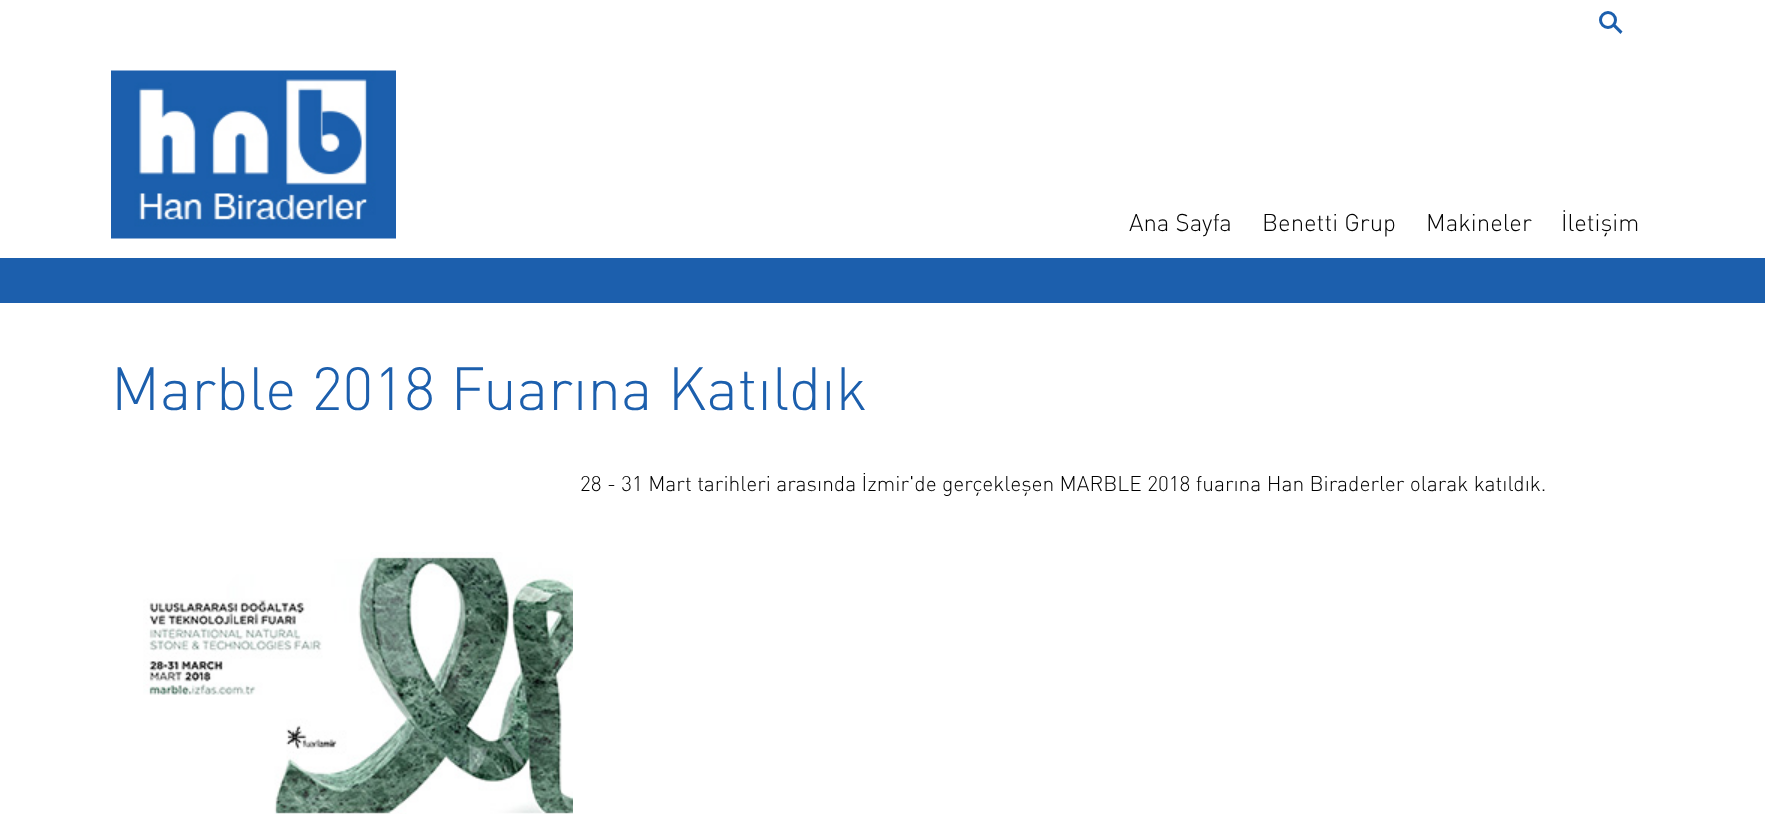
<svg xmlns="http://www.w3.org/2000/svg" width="1765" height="820">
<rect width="100%" height="100%" fill="#fff"/>
<rect y="258" width="1765" height="45" fill="#1c5fad"/>
<circle cx="1608" cy="20" r="7.5" fill="none" stroke="#1c5fad" stroke-width="3"/>
<path d="M1612 25.5l2-2.5l8.5 8.5l-2 2.5z" fill="#1c5fad"/>
<image x="111" y="70" width="285" height="169" href="media/1.png"/>
<text x="1129" y="231" style="font-family:DIN;font-size:24px;font-weight:300;fill:#010101">Ana Sayfa</text>
<text x="1262" y="231" style="font-family:DIN;font-size:24px;font-weight:300;fill:#010101">Benetti Grup</text>
<text x="1426" y="231" style="font-family:DIN;font-size:24px;font-weight:300;fill:#010101">Makineler</text>
<text x="1561" y="231" style="font-family:DIN;font-size:24px;font-weight:300;fill:#010101">İletişim</text>
<text x="111" y="410" style="font-family:DIN;font-size:60px;font-weight:300;fill:#1c5fad">Marble 2018 Fuarına Katıldık</text>
<text x="580" y="491" style="font-family:DIN;font-size:21px;font-weight:300;fill:#010101">28 - 31 Mart tarihleri arasında İzmir'de gerçekleşen MARBLE 2018 fuarına Han Biraderler olarak katıldık.</text>
<image x="143" y="552" width="430" height="262" href="media/2.png"/>
</svg>
